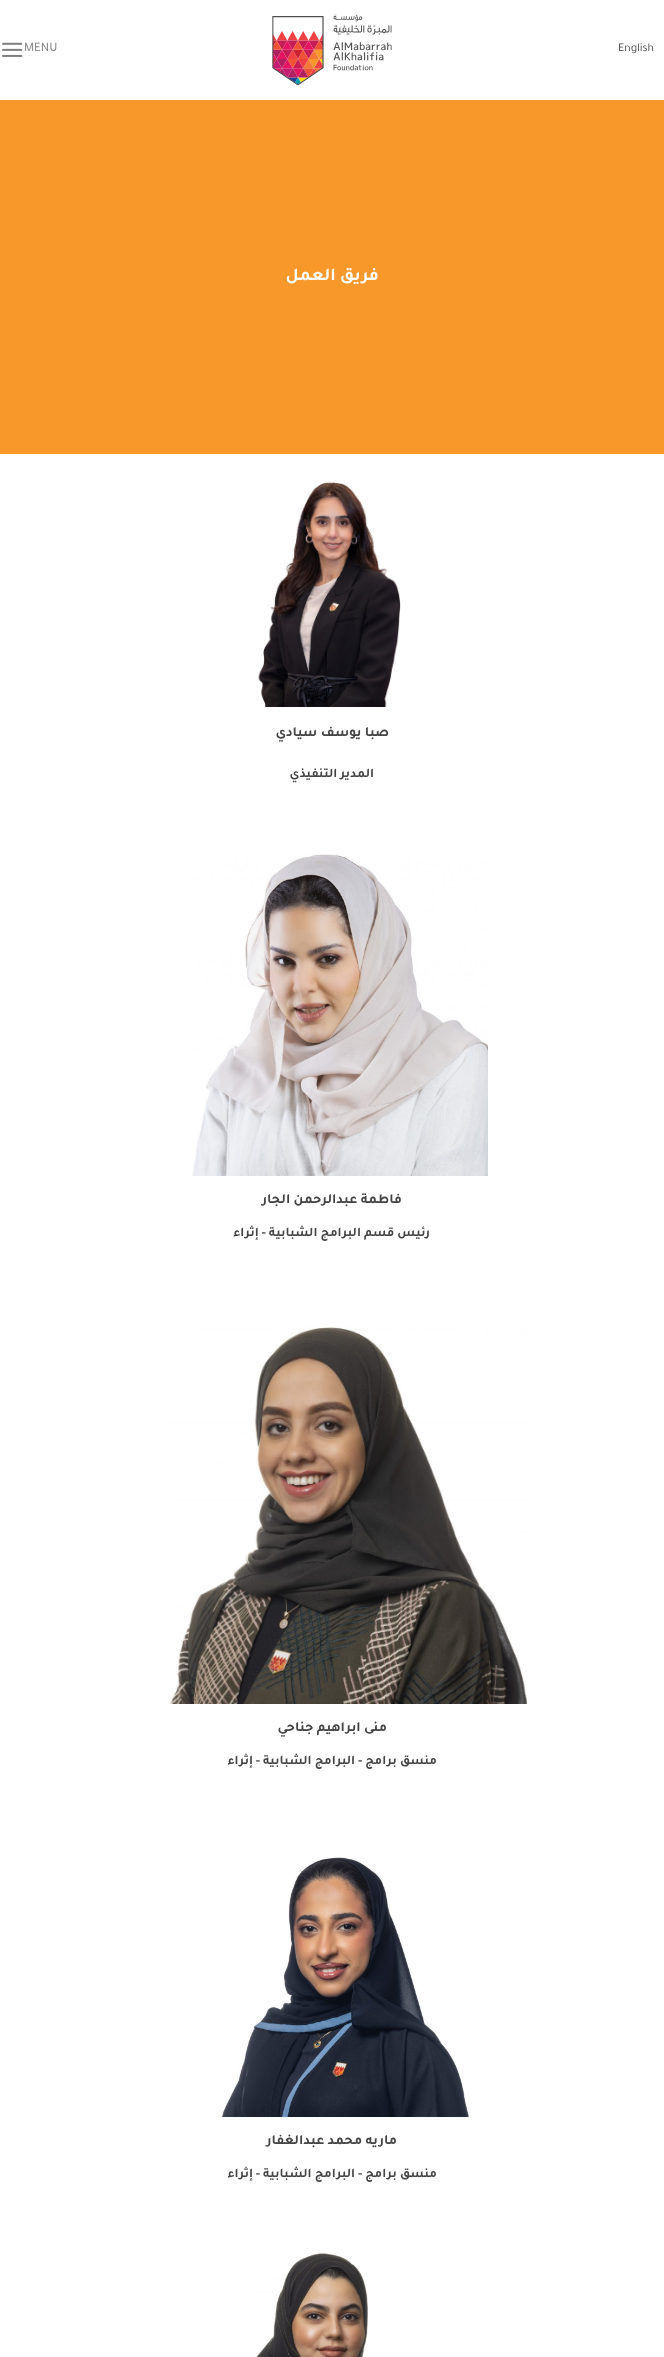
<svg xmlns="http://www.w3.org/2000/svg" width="664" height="2357">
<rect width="100%" height="100%" fill="#fff"/>
<text x="618" y="51" style="font-family:Tajawal;font-size:12px;fill:#444">English</text>
<image x="272" y="14" width="120" height="72" href="media/1.png"/>
<text x="24" y="51" style="font-family:Tajawal;font-size:13px;fill:#7d7d7d">MENU</text>
<image x="2" y="42" width="21" height="15" href="media/2.png"/>
<rect y="100" width="664" height="354" fill="#f8972a"/>
<text x="379" y="280" style="font-family:Tajawal;font-size:18px;font-weight:bold;direction:rtl;fill:#fff">فريق العمل</text>
<image x="258" y="482" width="143" height="225" href="media/3.png"/>
<text x="389" y="736" style="font-family:Tajawal;font-size:14px;font-weight:bold;direction:rtl;fill:#444">صبا يوسف سيادي</text>
<text x="374" y="777" style="font-family:Tajawal;font-size:13px;font-weight:bold;direction:rtl;fill:#444">المدير التنفيذي</text>
<image x="192" y="854" width="296" height="322" href="media/4.png"/>
<text x="402" y="1203" style="font-family:Tajawal;font-size:14px;font-weight:bold;direction:rtl;fill:#444">فاطمة عبدالرحمن الجار</text>
<text x="430" y="1236" style="font-family:Tajawal;font-size:13px;font-weight:bold;direction:rtl;fill:#444">رئيس قسم البرامج الشبابية - إثراء</text>
<image x="169" y="1327" width="360" height="377" href="media/5.png"/>
<text x="387" y="1731" style="font-family:Tajawal;font-size:14px;font-weight:bold;direction:rtl;fill:#444">منى ابراهيم جناحي</text>
<text x="437" y="1764" style="font-family:Tajawal;font-size:13px;font-weight:bold;direction:rtl;fill:#444">منسق برامج - البرامج الشبابية - إثراء</text>
<image x="221" y="1857" width="248" height="260" href="media/6.png"/>
<text x="397" y="2144" style="font-family:Tajawal;font-size:14px;font-weight:bold;direction:rtl;fill:#444">ماريه محمد عبدالغفار</text>
<text x="437" y="2177" style="font-family:Tajawal;font-size:13px;font-weight:bold;direction:rtl;fill:#444">منسق برامج - البرامج الشبابية - إثراء</text>
<image x="255" y="2253" width="114" height="104" href="media/7.png"/>
</svg>
